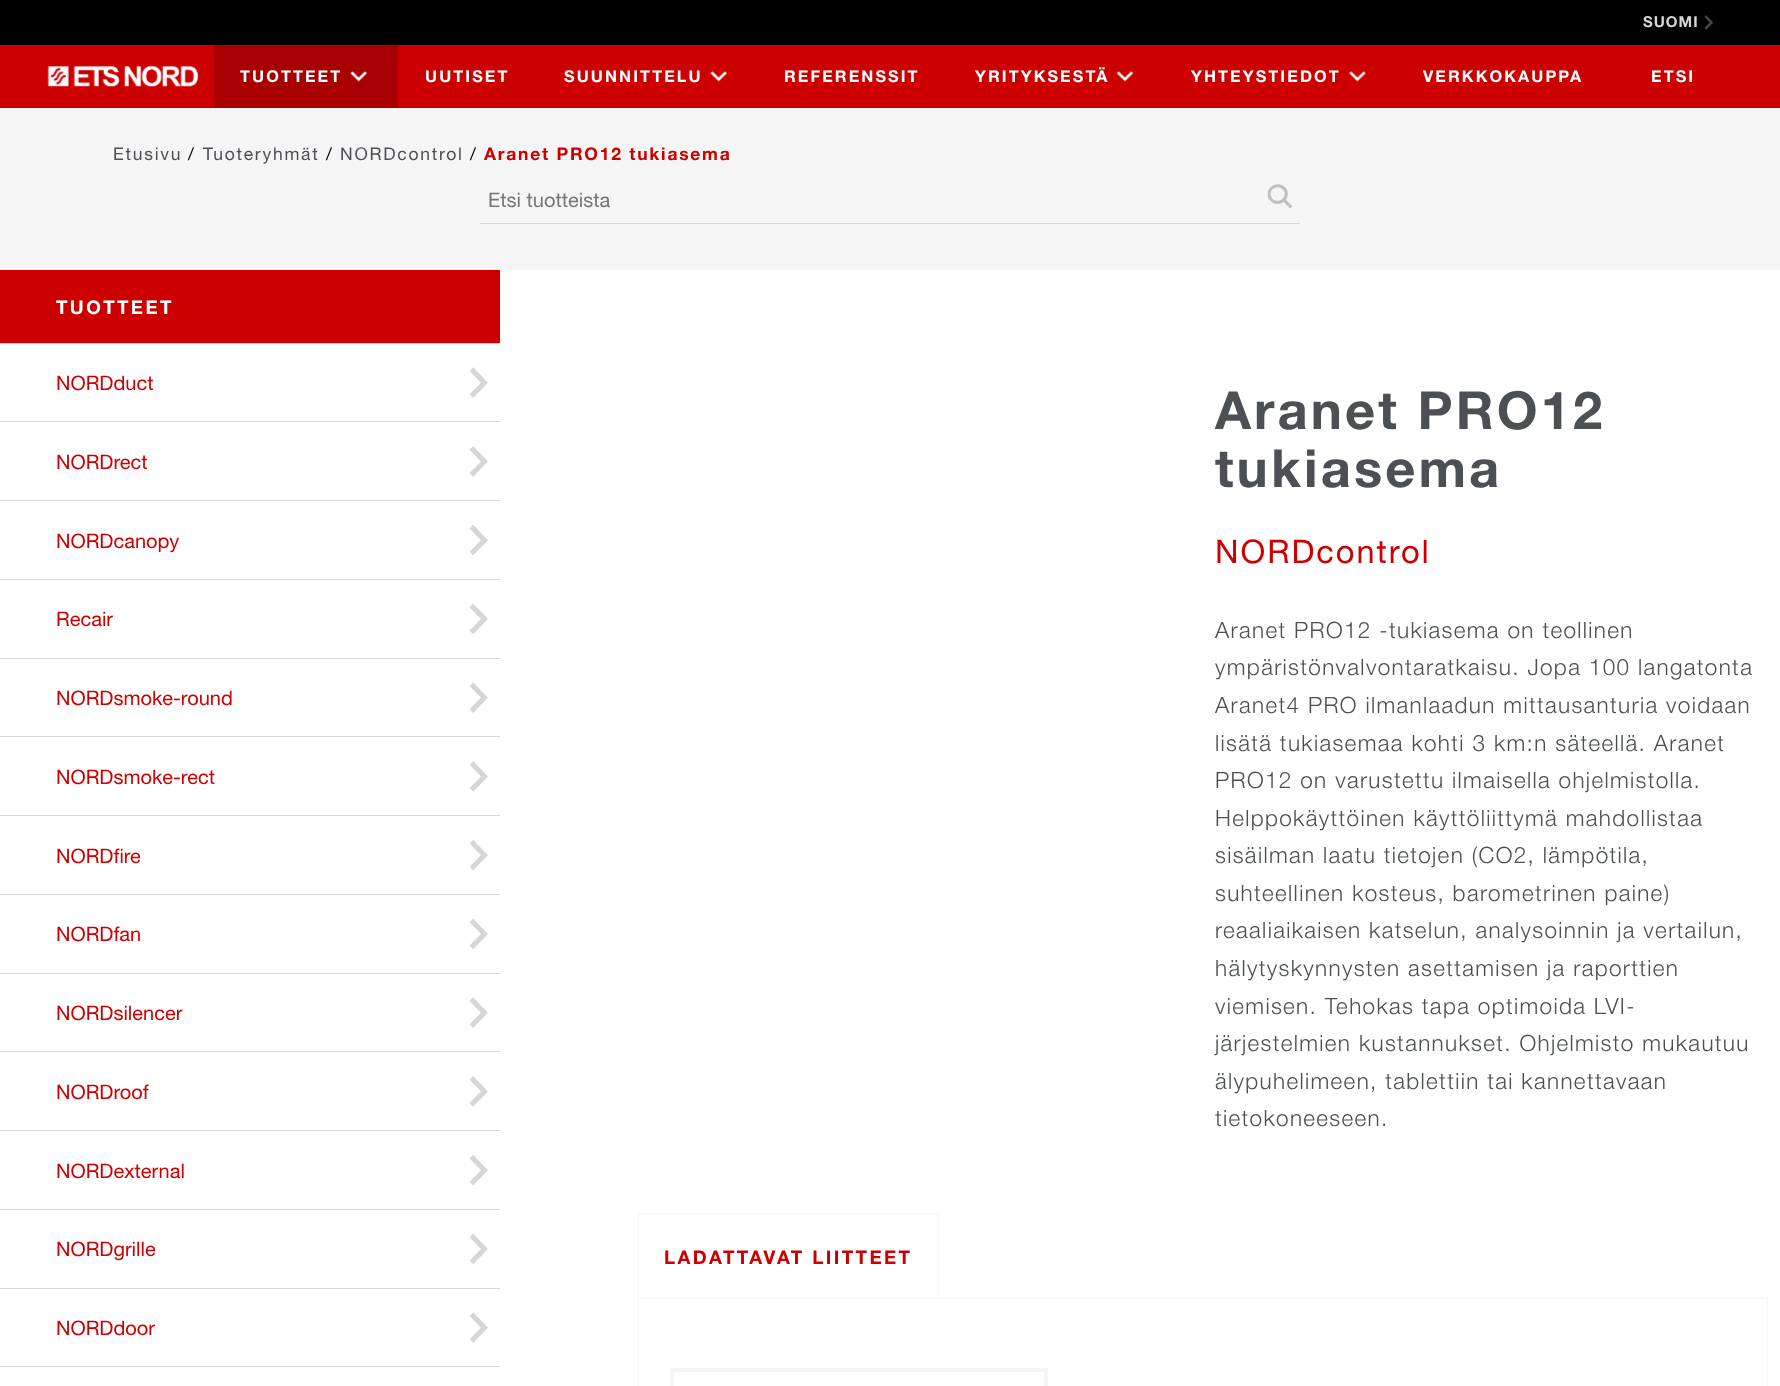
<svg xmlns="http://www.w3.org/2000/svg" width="1780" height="1386">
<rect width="100%" height="100%" fill="#fff"/>
<rect width="1780" height="45" fill="#000"/>
<text x="1643" y="27" style="font-family:Helvetica Neue;font-size:15px;font-weight:bold;letter-spacing:1px;fill:#d5d6d5">SUOMI</text>
<image x="1704" y="15" width="10" height="15" href="media/1.png"/>
<rect y="45" width="1780" height="63" fill="#c00"/>
<image x="47" y="66" width="152" height="21" href="media/2.png"/>
<rect x="214" y="45" width="184" height="63" fill="#a80000"/>
<text x="240" y="82" style="font-family:Helvetica Neue;font-size:16.25px;font-weight:bold;letter-spacing:2.1px;fill:#fff">TUOTTEET</text>
<image x="350" y="71" width="17" height="11" href="media/3.png"/>
<text x="425" y="82" style="font-family:Helvetica Neue;font-size:16.25px;font-weight:bold;letter-spacing:2.1px;fill:#fff">UUTISET</text>
<text x="564" y="82" style="font-family:Helvetica Neue;font-size:16.25px;font-weight:bold;letter-spacing:2.1px;fill:#fff">SUUNNITTELU</text>
<image x="710" y="71" width="17" height="11" href="media/4.png"/>
<text x="784" y="82" style="font-family:Helvetica Neue;font-size:16.25px;font-weight:bold;letter-spacing:2.1px;fill:#fff">REFERENSSIT</text>
<text x="975" y="82" style="font-family:Helvetica Neue;font-size:16.25px;font-weight:bold;letter-spacing:2.1px;fill:#fff">YRITYKSESTÄ</text>
<image x="1116" y="71" width="18" height="11" href="media/5.png"/>
<text x="1191" y="82" style="font-family:Helvetica Neue;font-size:16.25px;font-weight:bold;letter-spacing:2.1px;fill:#fff">YHTEYSTIEDOT</text>
<image x="1348" y="71" width="18" height="11" href="media/6.png"/>
<text x="1423" y="82" style="font-family:Helvetica Neue;font-size:16.25px;font-weight:bold;letter-spacing:2.1px;fill:#fff">VERKKOKAUPPA</text>
<text x="1651" y="82" style="font-family:Helvetica Neue;font-size:16.25px;font-weight:bold;letter-spacing:2.1px;fill:#fff">ETSI</text>
<rect y="108" width="1780" height="162" fill="#f5f5f5"/>
<text x="113" y="160" style="font-family:Helvetica Neue;font-size:17.5px;letter-spacing:1.75px;fill:#4c5055">Etusivu</text>
<text x="188" y="160" style="font-family:Helvetica Neue;font-size:17.5px;letter-spacing:1.75px;fill:#000">/</text>
<text x="203" y="160" style="font-family:Helvetica Neue;font-size:17.5px;letter-spacing:1.75px;fill:#4c5055">Tuoteryhmät</text>
<text x="326" y="160" style="font-family:Helvetica Neue;font-size:17.5px;letter-spacing:1.75px;fill:#000">/</text>
<text x="340" y="160" style="font-family:Helvetica Neue;font-size:17.5px;letter-spacing:1.75px;fill:#4c5055">NORDcontrol</text>
<text x="470" y="160" style="font-family:Helvetica Neue;font-size:17.5px;letter-spacing:1.75px;fill:#000">/</text>
<text x="484" y="160" style="font-family:Helvetica Neue;font-size:17.5px;font-weight:bold;letter-spacing:1.75px;fill:#c00">Aranet PRO12 tukiasema</text>
<rect x="480" y="223" width="820" height="1" fill="#d5d6d5"/>
<text x="488" y="207" style="font-family:Helvetica Neue;font-size:20px;fill:#757575">Etsi tuotteista</text>
<image x="1267" y="184" width="25" height="25" href="media/7.png"/>
<rect y="270" width="500" height="73" fill="#c00"/>
<rect y="343" width="500" height="1" fill="#d5d6d5"/>
<text x="56" y="314" style="font-family:Helvetica Neue;font-size:18.75px;font-weight:bold;letter-spacing:2.4px;fill:#fff">TUOTTEET</text>
<rect y="421" width="500" height="1" fill="#d5d6d5"/>
<text x="56" y="390" style="font-family:Helvetica Neue;font-size:20px;fill:#c00">NORDduct</text>
<image x="469" y="367" width="19" height="31" href="media/8.png"/>
<rect y="500" width="500" height="1" fill="#d5d6d5"/>
<text x="56" y="469" style="font-family:Helvetica Neue;font-size:20px;fill:#c00">NORDrect</text>
<image x="469" y="446" width="19" height="31" href="media/9.png"/>
<rect y="579" width="500" height="1" fill="#d5d6d5"/>
<text x="56" y="548" style="font-family:Helvetica Neue;font-size:20px;fill:#c00">NORDcanopy</text>
<image x="469" y="525" width="19" height="31" href="media/10.png"/>
<rect y="658" width="500" height="1" fill="#d5d6d5"/>
<text x="56" y="626" style="font-family:Helvetica Neue;font-size:20px;fill:#c00">Recair</text>
<image x="469" y="603" width="19" height="31" href="media/11.png"/>
<rect y="736" width="500" height="1" fill="#d5d6d5"/>
<text x="56" y="705" style="font-family:Helvetica Neue;font-size:20px;fill:#c00">NORDsmoke-round</text>
<image x="469" y="682" width="19" height="31" href="media/8.png"/>
<rect y="815" width="500" height="1" fill="#d5d6d5"/>
<text x="56" y="784" style="font-family:Helvetica Neue;font-size:20px;fill:#c00">NORDsmoke-rect</text>
<image x="469" y="761" width="19" height="31" href="media/12.png"/>
<rect y="894" width="500" height="1" fill="#d5d6d5"/>
<text x="56" y="863" style="font-family:Helvetica Neue;font-size:20px;fill:#c00">NORDfire</text>
<image x="469" y="840" width="19" height="31" href="media/10.png"/>
<rect y="973" width="500" height="1" fill="#d5d6d5"/>
<text x="56" y="941" style="font-family:Helvetica Neue;font-size:20px;fill:#c00">NORDfan</text>
<image x="469" y="918" width="19" height="31" href="media/11.png"/>
<rect y="1051" width="500" height="1" fill="#d5d6d5"/>
<text x="56" y="1020" style="font-family:Helvetica Neue;font-size:20px;fill:#c00">NORDsilencer</text>
<image x="469" y="997" width="19" height="31" href="media/13.png"/>
<rect y="1130" width="500" height="1" fill="#d5d6d5"/>
<text x="56" y="1099" style="font-family:Helvetica Neue;font-size:20px;fill:#c00">NORDroof</text>
<image x="469" y="1076" width="19" height="31" href="media/9.png"/>
<rect y="1209" width="500" height="1" fill="#d5d6d5"/>
<text x="56" y="1178" style="font-family:Helvetica Neue;font-size:20px;fill:#c00">NORDexternal</text>
<image x="469" y="1155" width="19" height="31" href="media/10.png"/>
<rect y="1288" width="500" height="1" fill="#d5d6d5"/>
<text x="56" y="1256" style="font-family:Helvetica Neue;font-size:20px;fill:#c00">NORDgrille</text>
<image x="469" y="1233" width="19" height="31" href="media/11.png"/>
<rect y="1366" width="500" height="1" fill="#d5d6d5"/>
<text x="56" y="1335" style="font-family:Helvetica Neue;font-size:20px;fill:#c00">NORDdoor</text>
<image x="469" y="1312" width="19" height="31" href="media/8.png"/>
<text x="1215" y="429" style="font-family:Helvetica Neue;font-size:52.5px;font-weight:bold;letter-spacing:3.1px;fill:#4c5055">Aranet PRO12</text>
<text x="1215" y="487" style="font-family:Helvetica Neue;font-size:52.5px;font-weight:bold;letter-spacing:3.1px;fill:#4c5055">tukiasema</text>
<text x="1215" y="563" style="font-family:Helvetica Neue;font-size:32.5px;letter-spacing:2px;fill:#c00">NORDcontrol</text>
<text x="1215" y="638" style="font-family:Helvetica Neue;font-size:22.5px;font-weight:300;letter-spacing:1.35px;fill:#4c5055">Aranet PRO12 -tukiasema on teollinen</text>
<text x="1215" y="675" style="font-family:Helvetica Neue;font-size:22.5px;font-weight:300;letter-spacing:1.35px;fill:#4c5055">ympäristönvalvontaratkaisu. Jopa 100 langatonta</text>
<text x="1215" y="713" style="font-family:Helvetica Neue;font-size:22.5px;font-weight:300;letter-spacing:1.35px;fill:#4c5055">Aranet4 PRO ilmanlaadun mittausanturia voidaan</text>
<text x="1215" y="751" style="font-family:Helvetica Neue;font-size:22.5px;font-weight:300;letter-spacing:1.35px;fill:#4c5055">lisätä tukiasemaa kohti 3 km:n säteellä. Aranet</text>
<text x="1215" y="788" style="font-family:Helvetica Neue;font-size:22.5px;font-weight:300;letter-spacing:1.35px;fill:#4c5055">PRO12 on varustettu ilmaisella ohjelmistolla.</text>
<text x="1215" y="826" style="font-family:Helvetica Neue;font-size:22.5px;font-weight:300;letter-spacing:1.35px;fill:#4c5055">Helppokäyttöinen käyttöliittymä mahdollistaa</text>
<text x="1215" y="863" style="font-family:Helvetica Neue;font-size:22.5px;font-weight:300;letter-spacing:1.35px;fill:#4c5055">sisäilman laatu tietojen (CO2, lämpötila,</text>
<text x="1215" y="901" style="font-family:Helvetica Neue;font-size:22.5px;font-weight:300;letter-spacing:1.35px;fill:#4c5055">suhteellinen kosteus, barometrinen paine)</text>
<text x="1215" y="938" style="font-family:Helvetica Neue;font-size:22.5px;font-weight:300;letter-spacing:1.35px;fill:#4c5055">reaaliaikaisen katselun, analysoinnin ja vertailun,</text>
<text x="1215" y="976" style="font-family:Helvetica Neue;font-size:22.5px;font-weight:300;letter-spacing:1.35px;fill:#4c5055">hälytyskynnysten asettamisen ja raporttien</text>
<text x="1215" y="1014" style="font-family:Helvetica Neue;font-size:22.5px;font-weight:300;letter-spacing:1.35px;fill:#4c5055">viemisen. Tehokas tapa optimoida LVI-</text>
<text x="1215" y="1051" style="font-family:Helvetica Neue;font-size:22.5px;font-weight:300;letter-spacing:1.35px;fill:#4c5055">järjestelmien kustannukset. Ohjelmisto mukautuu</text>
<text x="1215" y="1089" style="font-family:Helvetica Neue;font-size:22.5px;font-weight:300;letter-spacing:1.35px;fill:#4c5055">älypuhelimeen, tablettiin tai kannettavaan</text>
<text x="1215" y="1126" style="font-family:Helvetica Neue;font-size:22.5px;font-weight:300;letter-spacing:1.35px;fill:#4c5055">tietokoneeseen.</text>
<rect x="638" y="1213" width="301" height="1" fill="#f5f5f5"/>
<rect x="938" y="1213" width="1" height="86" fill="#f5f5f5"/>
<rect x="638" y="1213" width="1" height="86" fill="#f5f5f5"/>
<text x="664" y="1264" style="font-family:Helvetica Neue;font-size:18.75px;font-weight:bold;letter-spacing:2.4px;fill:#c00">LADATTAVAT LIITTEET</text>
<rect x="638.5" y="1298.5" width="1129" height="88" fill="none" stroke="#f5f5f5"/>
<rect x="672" y="1370" width="374" height="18" fill="none" stroke="#f5f5f5" stroke-width="4"/>
</svg>
